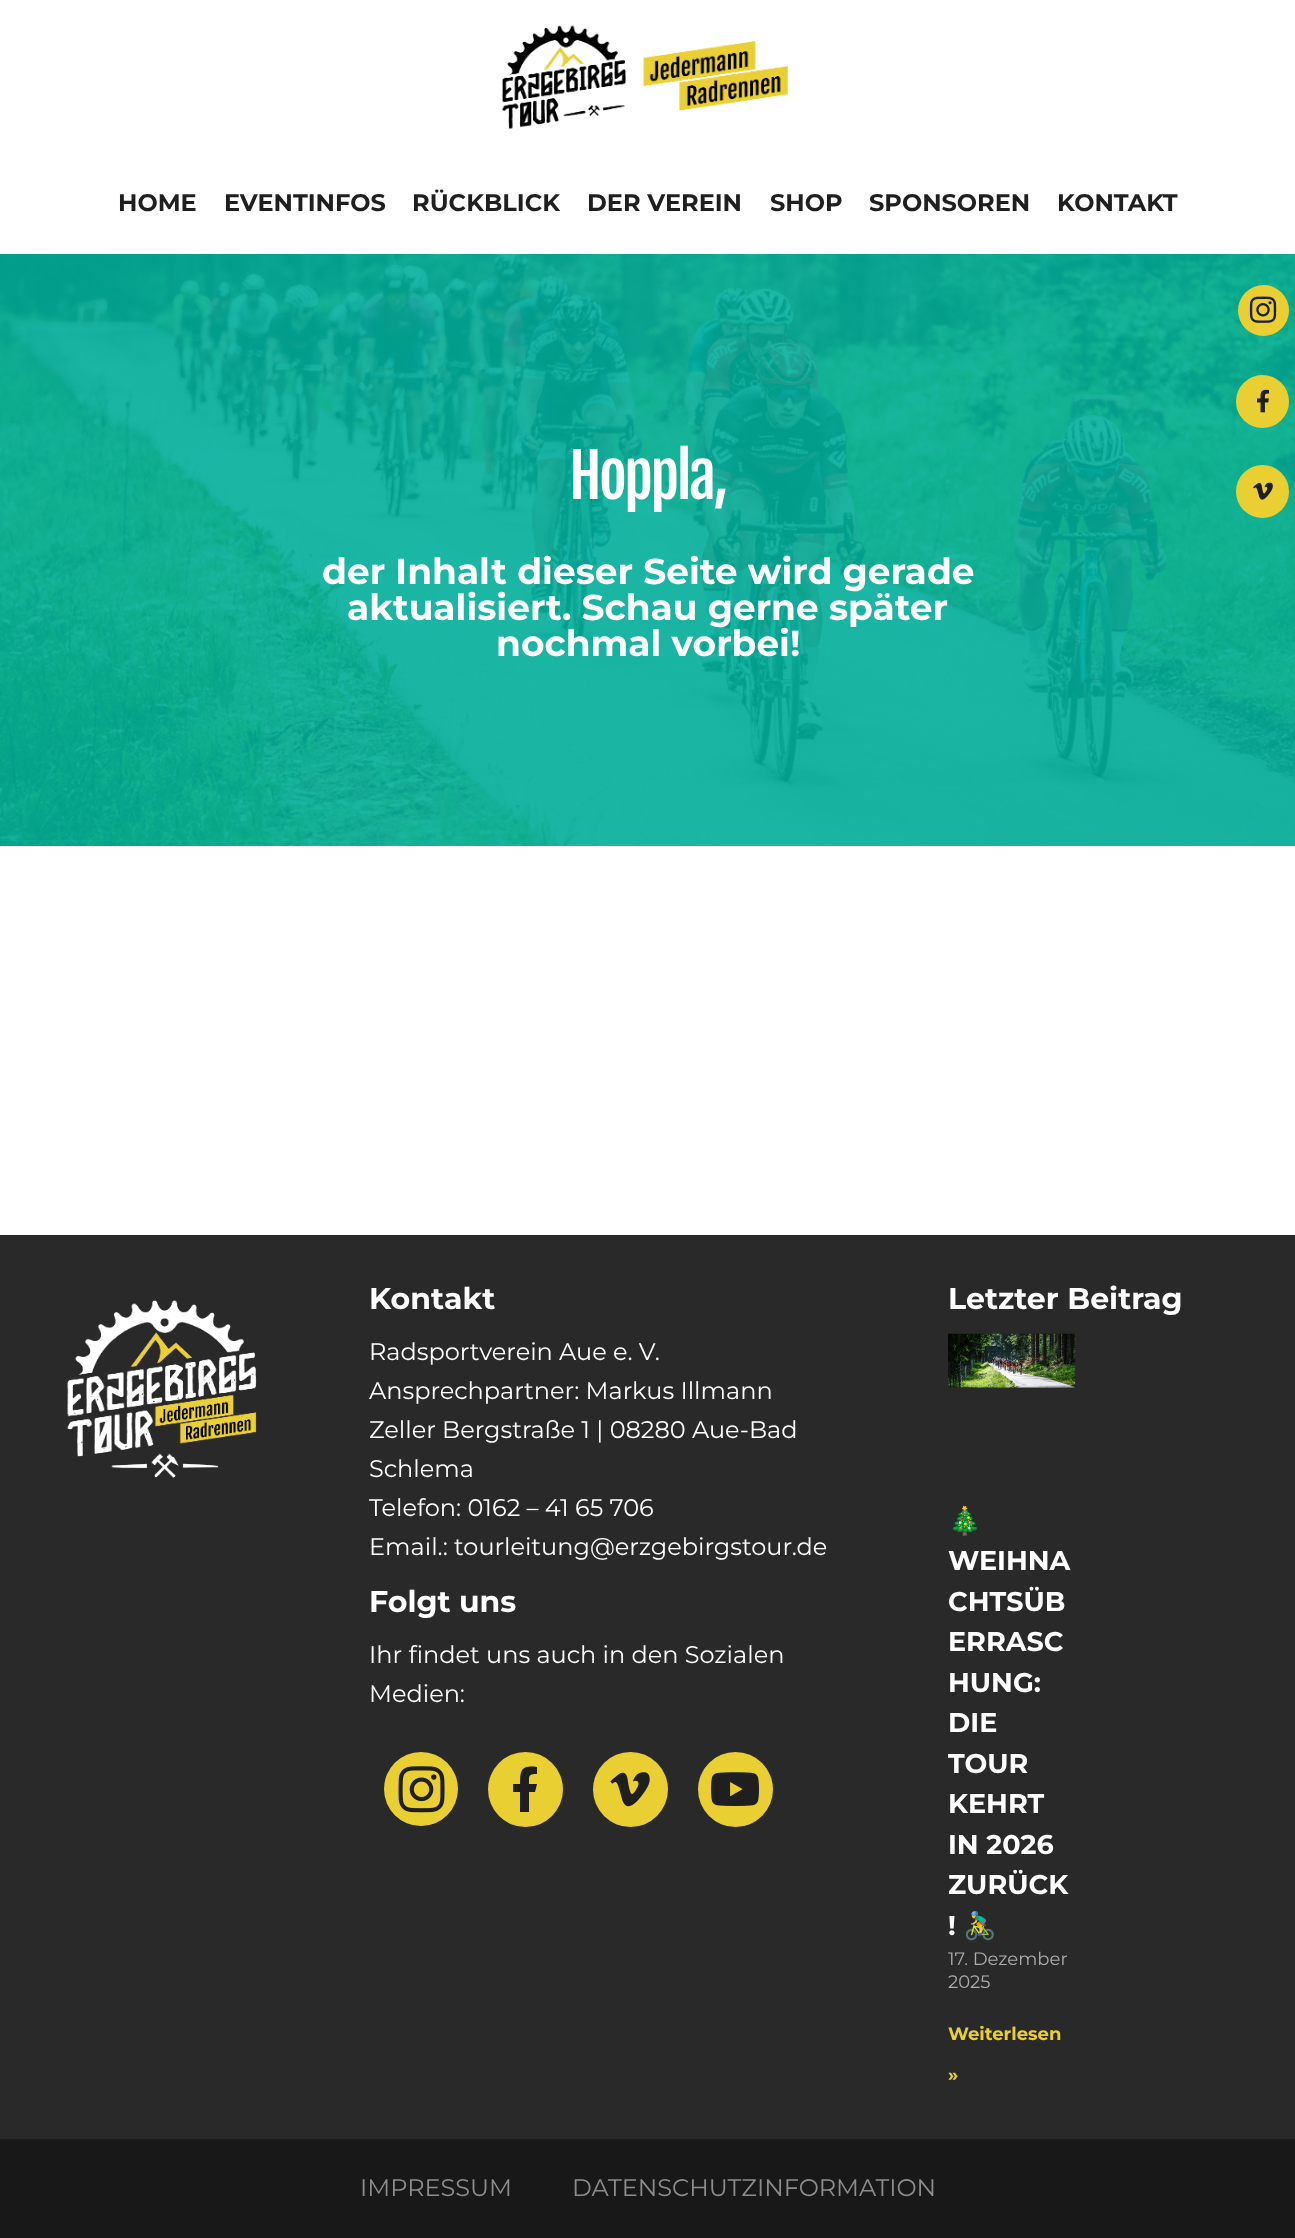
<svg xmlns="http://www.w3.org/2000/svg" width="1295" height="2238">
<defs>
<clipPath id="clip1"><rect x="948" y="1334" width="128" height="760"/></clipPath>
</defs>
<rect width="100%" height="100%" fill="#fff"/>
<image x="501" y="25" width="287" height="104" href="media/1.png"/>
<text x="118" y="211" style="font-family:Montserrat;font-size:24px;font-weight:100;fill:#1f1f1f">HOME</text>
<text x="224" y="211" style="font-family:Montserrat;font-size:24px;font-weight:100;fill:#1f1f1f">EVENTINFOS</text>
<text x="412" y="211" style="font-family:Montserrat;font-size:24px;font-weight:100;fill:#1f1f1f">RÜCKBLICK</text>
<text x="587" y="211" style="font-family:Montserrat;font-size:24px;font-weight:100;fill:#1f1f1f">DER VEREIN</text>
<text x="770" y="211" style="font-family:Montserrat;font-size:24px;font-weight:100;fill:#1f1f1f">SHOP</text>
<text x="869" y="211" style="font-family:Montserrat;font-size:24px;font-weight:100;fill:#1f1f1f">SPONSOREN</text>
<text x="1057" y="211" style="font-family:Montserrat;font-size:24px;font-weight:100;fill:#1f1f1f">KONTAKT</text>
<image x="0" y="254" width="1295" height="592" href="media/5.png"/>
<circle cx="1263.5" cy="310.5" r="25.5" fill="#eacf33"/>
<image x="1249" y="296" width="28" height="27" href="media/2.png"/>
<circle cx="1262.5" cy="401.5" r="26.5" fill="#eacf33"/>
<image x="1257" y="389" width="12" height="24" href="media/3.png"/>
<circle cx="1262.5" cy="491.5" r="26.5" fill="#eacf33"/>
<image x="1253" y="482" width="20" height="18" href="media/4.png"/>
<text x="569" y="499" style="font-family:Fjalla One;font-size:60px;letter-spacing:-2.75px;fill:#fff">Hoppla,</text>
<text x="322" y="584" style="font-family:Montserrat;font-size:36px;font-weight:100;fill:#fff">der Inhalt dieser Seite wird gerade</text>
<text x="347" y="620" style="font-family:Montserrat;font-size:36px;font-weight:100;fill:#fff">aktualisiert. Schau gerne später</text>
<text x="496" y="656" style="font-family:Montserrat;font-size:36px;font-weight:100;fill:#fff">nochmal vorbei!</text>
<rect y="1235" width="1295" height="904" fill="#29292a"/>
<image x="67" y="1300" width="190" height="178" href="media/6.png"/>
<text x="369" y="1309" style="font-family:Montserrat;font-size:30px;font-weight:100;fill:#fff">Kontakt</text>
<text x="369" y="1360" style="font-family:'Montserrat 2';font-size:24px;font-weight:100;fill:#fff">Radsportverein Aue e. V.</text>
<text x="369" y="1399" style="font-family:'Montserrat 2';font-size:24px;font-weight:100;fill:#fff">Ansprechpartner: Markus Illmann</text>
<text x="369" y="1438" style="font-family:'Montserrat 2';font-size:24px;font-weight:100;fill:#fff">Zeller Bergstraße 1 | 08280 Aue-Bad</text>
<text x="369" y="1477" style="font-family:'Montserrat 2';font-size:24px;font-weight:100;fill:#fff">Schlema</text>
<text x="369" y="1516" style="font-family:'Montserrat 2';font-size:24px;font-weight:100;fill:#fff">Telefon: 0162 – 41 65 706</text>
<text x="369" y="1555" style="font-family:'Montserrat 2';font-size:24px;font-weight:100;fill:#fff">Email.: tourleitung@erzgebirgstour.de</text>
<text x="369" y="1612" style="font-family:Montserrat;font-size:30px;font-weight:100;fill:#fff">Folgt uns</text>
<text x="369" y="1663" style="font-family:'Montserrat 2';font-size:24px;font-weight:100;fill:#fff">Ihr findet uns auch in den Sozialen</text>
<text x="369" y="1702" style="font-family:'Montserrat 2';font-size:24px;font-weight:100;fill:#fff">Medien:</text>
<circle cx="421" cy="1789" r="37" fill="#eacf33"/>
<image x="398" y="1766" width="47" height="47" href="media/7.png"/>
<circle cx="525.5" cy="1789.5" r="37.5" fill="#eacf33"/>
<path d="M535 1792h-6v20h-9v-20h-7v-8h7c0-15 2-19 17-17v7c-9 0-8 2-8 10h8z" fill="#1f1f1f"/>
<circle cx="630.5" cy="1789.5" r="37.5" fill="#eacf33"/>
<image x="610" y="1772" width="40" height="35" href="media/8.png"/>
<circle cx="735.5" cy="1789.5" r="37.5" fill="#eacf33"/>
<image x="711" y="1772" width="48" height="34" href="media/9.png"/>
<text x="948" y="1309" style="font-family:Montserrat;font-size:30px;font-weight:100;fill:#fff">Letzter Beitrag</text>
<image x="948" y="1333" width="128" height="55" href="media/10.png"/>
<g clip-path="url(#clip1)">
<text x="948" y="1530" style="font-family:Noto Color Emoji;font-size:27px;font-weight:bold;fill:#fff">🎄</text>
</g>
<text x="948" y="1570" style="font-family:Montserrat;font-size:27px;font-weight:100;fill:#fff">WEIHNA</text>
<text x="948" y="1611" style="font-family:Montserrat;font-size:27px;font-weight:100;fill:#fff">CHTSÜB</text>
<text x="948" y="1651" style="font-family:Montserrat;font-size:27px;font-weight:100;fill:#fff">ERRASC</text>
<text x="948" y="1692" style="font-family:Montserrat;font-size:27px;font-weight:100;fill:#fff">HUNG:</text>
<text x="948" y="1732" style="font-family:Montserrat;font-size:27px;font-weight:100;fill:#fff">DIE</text>
<text x="948" y="1773" style="font-family:Montserrat;font-size:27px;font-weight:100;fill:#fff">TOUR</text>
<text x="948" y="1813" style="font-family:Montserrat;font-size:27px;font-weight:100;fill:#fff">KEHRT</text>
<text x="948" y="1854" style="font-family:Montserrat;font-size:27px;font-weight:100;fill:#fff">IN 2026</text>
<text x="948" y="1894" style="font-family:Montserrat;font-size:27px;font-weight:100;fill:#fff">ZURÜCK</text>
<text x="948" y="1935" style="font-family:Montserrat;font-size:27px;font-weight:100;fill:#fff">!</text>
<text x="963" y="1935" style="font-family:Noto Color Emoji;font-size:27px;font-weight:bold;fill:#fff">🚴‍♂️</text>
<text x="948" y="1965" style="font-family:'Montserrat 2';font-size:18px;font-weight:100;fill:#adadad">17. Dezember</text>
<text x="948" y="1988" style="font-family:'Montserrat 2';font-size:18px;font-weight:100;fill:#adadad">2025</text>
<text x="948" y="2040" style="font-family:Montserrat;font-size:18px;font-weight:100;fill:#eacf33">Weiterlesen</text>
<text x="948" y="2081" style="font-family:Montserrat;font-size:18px;font-weight:100;fill:#eacf33">»</text>
<rect y="2139" width="1295" height="99" fill="#181818"/>
<text x="360" y="2196" style="font-family:'Montserrat 2';font-size:24px;font-weight:100;fill:#8d8d8d">IMPRESSUM</text>
<text x="572" y="2196" style="font-family:'Montserrat 2';font-size:24px;font-weight:100;fill:#8d8d8d">DATENSCHUTZINFORMATION</text>
</svg>
